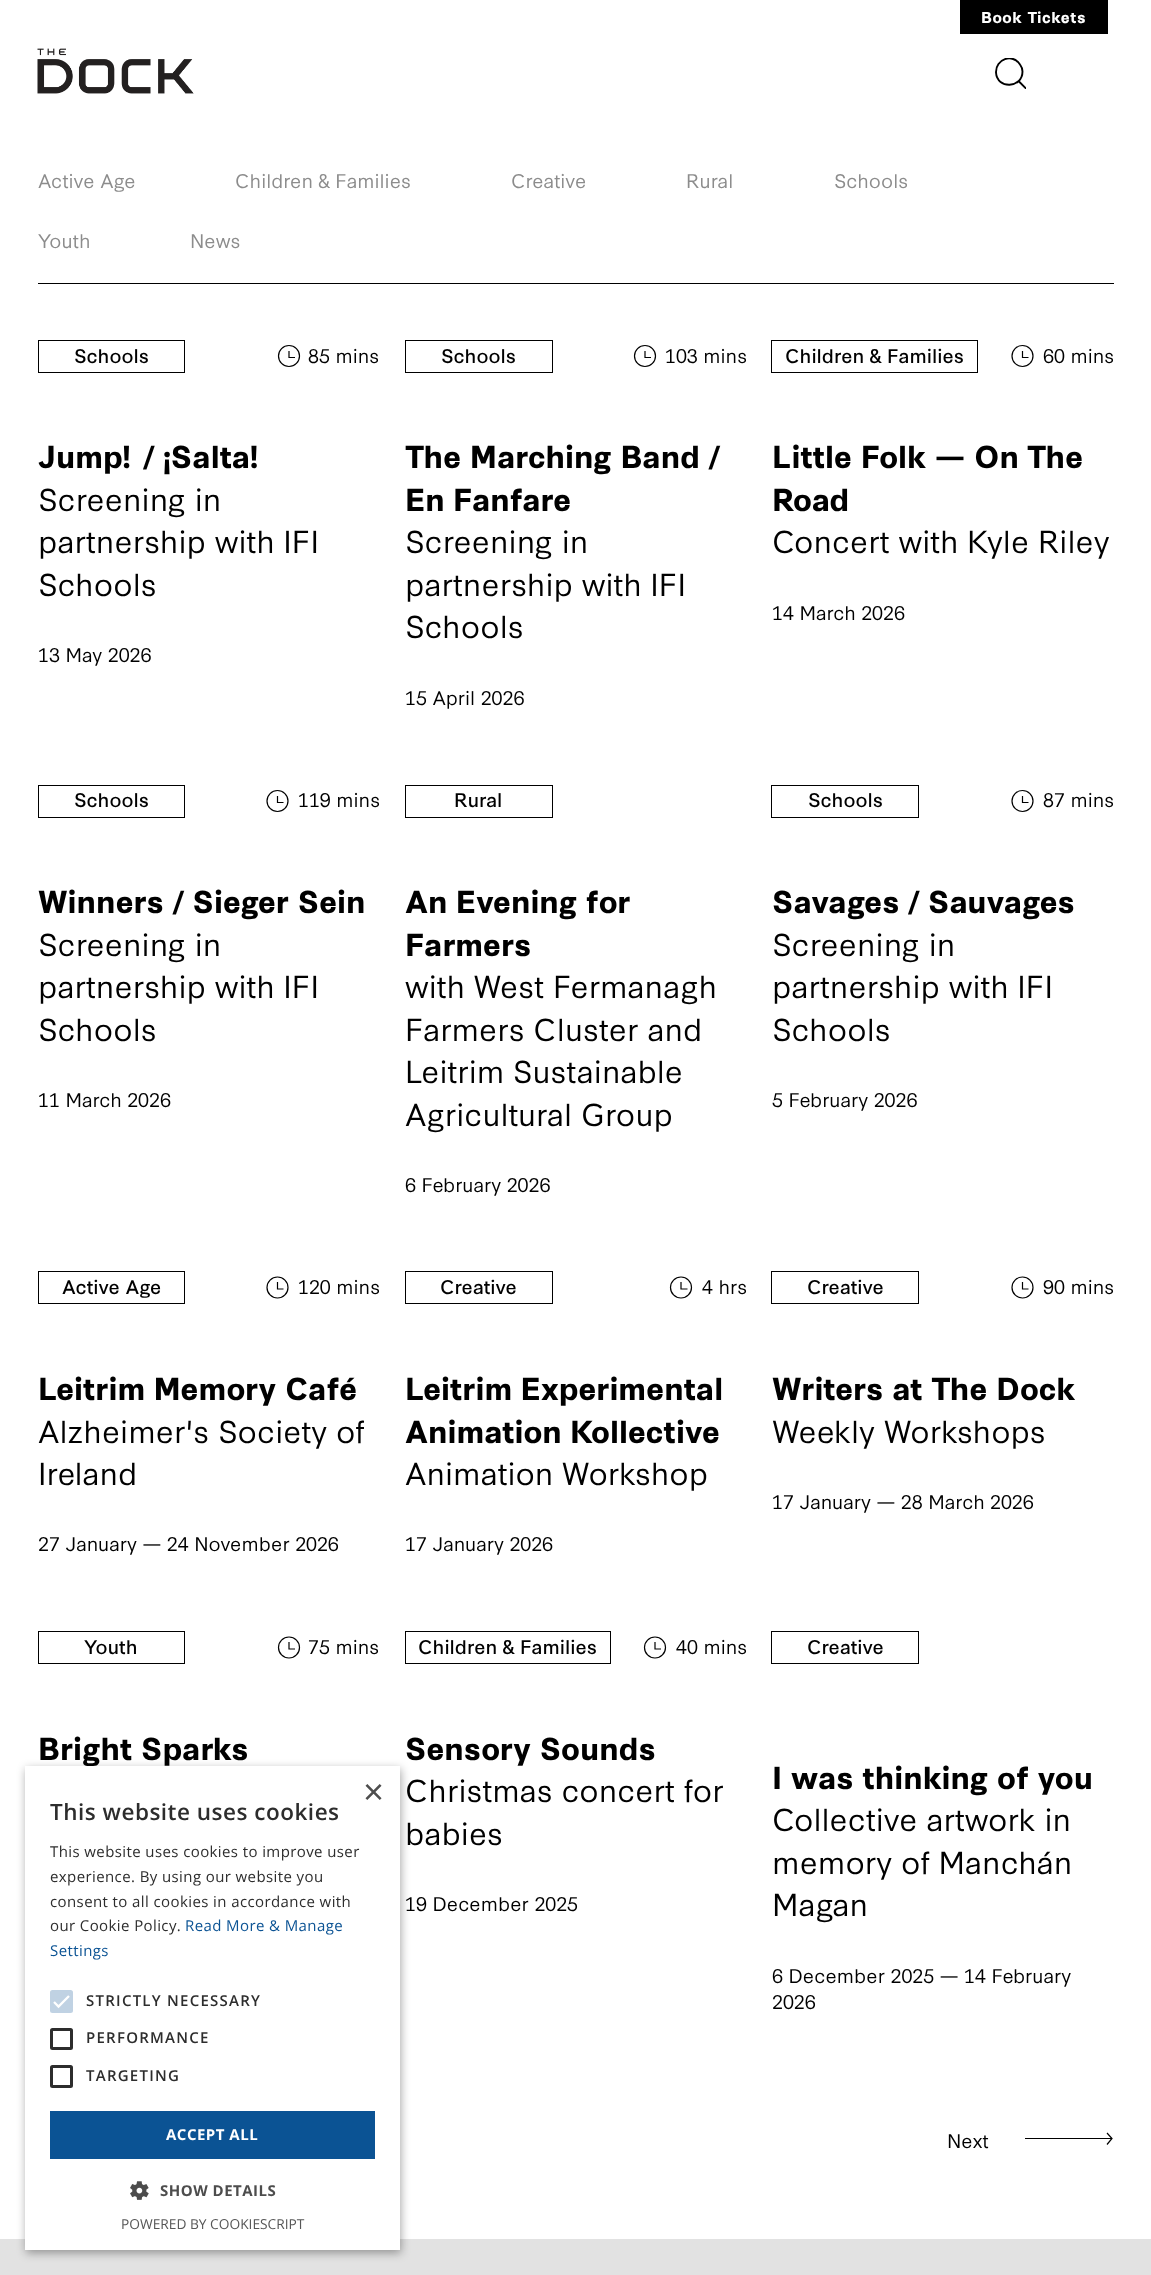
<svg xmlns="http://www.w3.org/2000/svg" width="1151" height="2275">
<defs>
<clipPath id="clip1"><rect x="995" y="58" width="31" height="31"/></clipPath>
</defs>
<rect width="100%" height="100%" fill="#fff"/>
<rect x="960" width="148" height="34" fill="#000"/>
<text x="981" y="23" style="font-family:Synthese;font-size:15px;font-weight:bold;letter-spacing:0.5px;fill:#fff">Book Tickets</text>
<g clip-path="url(#clip1)">
<path d="M1022.5 71.5c0 17-25.5 18-26.5 1c-.5-13.5 16.5-19.5 24-8c1.5 2 2.5 4.5 2.5 7zm3.5 17l-7.5-7.5" fill="none" stroke="#000" stroke-width="1.9" stroke-linecap="round" stroke-linejoin="round"/>
</g>
<image x="37" y="48" width="157" height="46" href="media/1.png"/>
<rect x="38" y="283" width="1076" height="1" fill="#000"/>
<text x="38" y="188" style="font-family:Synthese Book;font-size:18.75px;fill:#8c8c8c">Active Age</text>
<text x="235" y="188" style="font-family:Synthese Book;font-size:18.75px;fill:#8c8c8c">Children &amp; Families</text>
<text x="511" y="188" style="font-family:Synthese Book;font-size:18.75px;fill:#8c8c8c">Creative</text>
<text x="686" y="188" style="font-family:Synthese Book;font-size:18.75px;fill:#8c8c8c">Rural</text>
<text x="834" y="188" style="font-family:Synthese Book;font-size:18.75px;fill:#8c8c8c">Schools</text>
<text x="38" y="248" style="font-family:Synthese Book;font-size:18.75px;fill:#8c8c8c">Youth</text>
<text x="190" y="248" style="font-family:Synthese Book;font-size:18.75px;fill:#8c8c8c">News</text>
<rect x="38.5" y="340.5" width="146" height="32" fill="none" stroke="#000"/>
<text x="74" y="363" style="font-family:Synthese;font-size:18.75px;fill:#000">Schools</text>
<circle cx="289" cy="356" r="10.5" fill="none" stroke="#000" stroke-width="1.2"/>
<path d="M289 351v6.5h6" fill="none" stroke="#000" stroke-width="1.2"/>
<text x="308" y="363" style="font-family:Synthese Book;font-size:18.75px;fill:#000">85 mins</text>
<text x="38" y="468" style="font-family:Synthese;font-size:30px;font-weight:bold;fill:#000">Jump!  / ¡Salta!</text>
<text x="38" y="511" style="font-family:Synthese Book;font-size:30px;fill:#000">Screening in</text>
<text x="38" y="553" style="font-family:Synthese Book;font-size:30px;fill:#000">partnership with IFI</text>
<text x="38" y="596" style="font-family:Synthese Book;font-size:30px;fill:#000">Schools</text>
<text x="38" y="662" style="font-family:Synthese Book;font-size:18.75px;fill:#000">13 May 2026</text>
<rect x="405.5" y="340.5" width="147" height="32" fill="none" stroke="#000"/>
<text x="441" y="363" style="font-family:Synthese;font-size:18.75px;fill:#000">Schools</text>
<circle cx="645" cy="356" r="10.5" fill="none" stroke="#000" stroke-width="1.2"/>
<path d="M645 351v6.5h6" fill="none" stroke="#000" stroke-width="1.2"/>
<text x="665" y="363" style="font-family:Synthese Book;font-size:18.75px;fill:#000">103 mins</text>
<text x="405" y="468" style="font-family:Synthese;font-size:30px;font-weight:bold;fill:#000">The Marching Band /</text>
<text x="405" y="511" style="font-family:Synthese;font-size:30px;font-weight:bold;fill:#000">En Fanfare</text>
<text x="405" y="553" style="font-family:Synthese Book;font-size:30px;fill:#000">Screening in</text>
<text x="405" y="596" style="font-family:Synthese Book;font-size:30px;fill:#000">partnership with IFI</text>
<text x="405" y="638" style="font-family:Synthese Book;font-size:30px;fill:#000">Schools</text>
<text x="405" y="705" style="font-family:Synthese Book;font-size:18.75px;fill:#000">15 April 2026</text>
<rect x="771.5" y="340.5" width="206" height="32" fill="none" stroke="#000"/>
<text x="785" y="363" style="font-family:Synthese;font-size:18.75px;fill:#000">Children &amp; Families</text>
<circle cx="1022.5" cy="356" r="10.5" fill="none" stroke="#000" stroke-width="1.2"/>
<path d="M1022.5 351v6.5h6" fill="none" stroke="#000" stroke-width="1.2"/>
<text x="1043" y="363" style="font-family:Synthese Book;font-size:18.75px;fill:#000">60 mins</text>
<text x="772" y="468" style="font-family:Synthese;font-size:30px;font-weight:bold;fill:#000">Little Folk — On The</text>
<text x="772" y="511" style="font-family:Synthese;font-size:30px;font-weight:bold;fill:#000">Road</text>
<text x="772" y="553" style="font-family:Synthese Book;font-size:30px;fill:#000">Concert with Kyle Riley</text>
<text x="772" y="620" style="font-family:Synthese Book;font-size:18.75px;fill:#000">14 March 2026</text>
<rect x="38.5" y="785.5" width="146" height="32" fill="none" stroke="#000"/>
<text x="74" y="807" style="font-family:Synthese;font-size:18.75px;fill:#000">Schools</text>
<circle cx="277.5" cy="801" r="10.5" fill="none" stroke="#000" stroke-width="1.2"/>
<path d="M277.5 796v6.5h6" fill="none" stroke="#000" stroke-width="1.2"/>
<text x="298" y="807" style="font-family:Synthese Book;font-size:18.75px;fill:#000">119 mins</text>
<text x="38" y="913" style="font-family:Synthese;font-size:30px;font-weight:bold;fill:#000">Winners / Sieger Sein</text>
<text x="38" y="956" style="font-family:Synthese Book;font-size:30px;fill:#000">Screening in</text>
<text x="38" y="998" style="font-family:Synthese Book;font-size:30px;fill:#000">partnership with IFI</text>
<text x="38" y="1041" style="font-family:Synthese Book;font-size:30px;fill:#000">Schools</text>
<text x="38" y="1107" style="font-family:Synthese Book;font-size:18.75px;fill:#000">11 March 2026</text>
<rect x="405.5" y="785.5" width="147" height="32" fill="none" stroke="#000"/>
<text x="454" y="807" style="font-family:Synthese;font-size:18.75px;fill:#000">Rural</text>
<text x="405" y="913" style="font-family:Synthese;font-size:30px;font-weight:bold;fill:#000">An Evening for</text>
<text x="405" y="956" style="font-family:Synthese;font-size:30px;font-weight:bold;fill:#000">Farmers</text>
<text x="405" y="998" style="font-family:Synthese Book;font-size:30px;fill:#000">with West Fermanagh</text>
<text x="405" y="1041" style="font-family:Synthese Book;font-size:30px;fill:#000">Farmers Cluster and</text>
<text x="405" y="1083" style="font-family:Synthese Book;font-size:30px;fill:#000">Leitrim Sustainable</text>
<text x="405" y="1126" style="font-family:Synthese Book;font-size:30px;fill:#000">Agricultural Group</text>
<text x="405" y="1192" style="font-family:Synthese Book;font-size:18.75px;fill:#000">6 February 2026</text>
<rect x="771.5" y="785.5" width="147" height="32" fill="none" stroke="#000"/>
<text x="808" y="807" style="font-family:Synthese;font-size:18.75px;fill:#000">Schools</text>
<circle cx="1022.5" cy="801" r="10.5" fill="none" stroke="#000" stroke-width="1.2"/>
<path d="M1022.5 796v6.5h6" fill="none" stroke="#000" stroke-width="1.2"/>
<text x="1043" y="807" style="font-family:Synthese Book;font-size:18.75px;fill:#000">87 mins</text>
<text x="772" y="913" style="font-family:Synthese;font-size:30px;font-weight:bold;fill:#000">Savages / Sauvages</text>
<text x="772" y="956" style="font-family:Synthese Book;font-size:30px;fill:#000">Screening in</text>
<text x="772" y="998" style="font-family:Synthese Book;font-size:30px;fill:#000">partnership with IFI</text>
<text x="772" y="1041" style="font-family:Synthese Book;font-size:30px;fill:#000">Schools</text>
<text x="772" y="1107" style="font-family:Synthese Book;font-size:18.75px;fill:#000">5 February 2026</text>
<rect x="38.5" y="1271.5" width="146" height="32" fill="none" stroke="#000"/>
<text x="62" y="1294" style="font-family:Synthese;font-size:18.75px;fill:#000">Active Age</text>
<circle cx="277.5" cy="1287.5" r="10.5" fill="none" stroke="#000" stroke-width="1.2"/>
<path d="M277.5 1282v7h6" fill="none" stroke="#000" stroke-width="1.2"/>
<text x="298" y="1294" style="font-family:Synthese Book;font-size:18.75px;fill:#000">120 mins</text>
<text x="38" y="1400" style="font-family:Synthese;font-size:30px;font-weight:bold;fill:#000">Leitrim Memory Café</text>
<text x="38" y="1443" style="font-family:Synthese Book;font-size:30px;fill:#000">Alzheimer's Society of</text>
<text x="38" y="1485" style="font-family:Synthese Book;font-size:30px;fill:#000">Ireland</text>
<text x="38" y="1551" style="font-family:Synthese Book;font-size:18.75px;fill:#000">27 January — 24 November 2026</text>
<rect x="405.5" y="1271.5" width="147" height="32" fill="none" stroke="#000"/>
<text x="440" y="1294" style="font-family:Synthese;font-size:18.75px;fill:#000">Creative</text>
<circle cx="681" cy="1287.5" r="10.5" fill="none" stroke="#000" stroke-width="1.2"/>
<path d="M681 1282v7h6.5" fill="none" stroke="#000" stroke-width="1.2"/>
<text x="702" y="1294" style="font-family:Synthese Book;font-size:18.75px;fill:#000">4 hrs</text>
<text x="405" y="1400" style="font-family:Synthese;font-size:30px;font-weight:bold;fill:#000">Leitrim Experimental</text>
<text x="405" y="1443" style="font-family:Synthese;font-size:30px;font-weight:bold;fill:#000">Animation Kollective</text>
<text x="405" y="1485" style="font-family:Synthese Book;font-size:30px;fill:#000">Animation Workshop</text>
<text x="405" y="1551" style="font-family:Synthese Book;font-size:18.75px;fill:#000">17 January 2026</text>
<rect x="771.5" y="1271.5" width="147" height="32" fill="none" stroke="#000"/>
<text x="807" y="1294" style="font-family:Synthese;font-size:18.75px;fill:#000">Creative</text>
<circle cx="1022.5" cy="1287.5" r="10.5" fill="none" stroke="#000" stroke-width="1.2"/>
<path d="M1022.5 1282v7h6" fill="none" stroke="#000" stroke-width="1.2"/>
<text x="1043" y="1294" style="font-family:Synthese Book;font-size:18.75px;fill:#000">90 mins</text>
<text x="772" y="1400" style="font-family:Synthese;font-size:30px;font-weight:bold;fill:#000">Writers at The Dock</text>
<text x="772" y="1443" style="font-family:Synthese Book;font-size:30px;fill:#000">Weekly Workshops</text>
<text x="772" y="1509" style="font-family:Synthese Book;font-size:18.75px;fill:#000">17 January — 28 March 2026</text>
<rect x="38.5" y="1631.5" width="146" height="32" fill="none" stroke="#000"/>
<text x="84" y="1654" style="font-family:Synthese;font-size:18.75px;fill:#000">Youth</text>
<circle cx="289" cy="1647.5" r="10.5" fill="none" stroke="#000" stroke-width="1.2"/>
<path d="M289 1642v7h6" fill="none" stroke="#000" stroke-width="1.2"/>
<text x="308" y="1654" style="font-family:Synthese Book;font-size:18.75px;fill:#000">75 mins</text>
<text x="38" y="1760" style="font-family:Synthese;font-size:30px;font-weight:bold;fill:#000">Bright Sparks</text>
<rect x="405.5" y="1631.5" width="205" height="32" fill="none" stroke="#000"/>
<text x="418" y="1654" style="font-family:Synthese;font-size:18.75px;fill:#000">Children &amp; Families</text>
<circle cx="655" cy="1647.5" r="10.5" fill="none" stroke="#000" stroke-width="1.2"/>
<path d="M655 1642v7h6" fill="none" stroke="#000" stroke-width="1.2"/>
<text x="676" y="1654" style="font-family:Synthese Book;font-size:18.75px;fill:#000">40 mins</text>
<text x="405" y="1760" style="font-family:Synthese;font-size:30px;font-weight:bold;fill:#000">Sensory Sounds</text>
<text x="405" y="1802" style="font-family:Synthese Book;font-size:30px;fill:#000">Christmas concert for</text>
<text x="405" y="1845" style="font-family:Synthese Book;font-size:30px;fill:#000">babies</text>
<text x="405" y="1911" style="font-family:Synthese Book;font-size:18.75px;fill:#000">19 December 2025</text>
<rect x="771.5" y="1631.5" width="147" height="32" fill="none" stroke="#000"/>
<text x="807" y="1654" style="font-family:Synthese;font-size:18.75px;fill:#000">Creative</text>
<text x="772" y="1789" style="font-family:Synthese;font-size:30px;font-weight:bold;fill:#000">I was thinking of you</text>
<text x="772" y="1831" style="font-family:Synthese Book;font-size:30px;fill:#000">Collective artwork in</text>
<text x="772" y="1874" style="font-family:Synthese Book;font-size:30px;fill:#000">memory of Manchán</text>
<text x="772" y="1916" style="font-family:Synthese Book;font-size:30px;fill:#000">Magan</text>
<text x="772" y="1983" style="font-family:Synthese Book;font-size:18.75px;fill:#000">6 December 2025 — 14 February</text>
<text x="772" y="2009" style="font-family:Synthese Book;font-size:18.75px;fill:#000">2026</text>
<rect x="1025" y="2138" width="87" height="1" fill="#000"/>
<path d="M1107 2144.5l5-6l-5-5.5" fill="none" stroke="#000" stroke-width="1.2"/>
<text x="947" y="2148" style="font-family:Synthese Book;font-size:18.75px;fill:#000">Next</text>
<rect y="2239" width="1151" height="36" fill="#e2e2e2"/>
<rect x="26" y="1769" width="375" height="484" fill="#00000059" filter="blur(5px)"/>
<rect x="25" y="1766" width="375" height="484" fill="#fff"/>
<text x="363" y="1804" style="font-family:Liberation Sans;font-size:36px;fill:#4d4d4d">×</text>
<text x="50" y="1820" style="font-family:Open Sans;font-size:22.5px;font-weight:600;letter-spacing:0.5px;fill:#2d2d2d">This website uses cookies</text>
<text x="50" y="1857" style="font-family:Open Sans;font-size:15px;letter-spacing:0.4px;fill:#2d2d2d">This website uses cookies to improve user</text>
<text x="50" y="1882" style="font-family:Open Sans;font-size:15px;letter-spacing:0.4px;fill:#2d2d2d">experience. By using our website you</text>
<text x="50" y="1907" style="font-family:Open Sans;font-size:15px;letter-spacing:0.4px;fill:#2d2d2d">consent to all cookies in accordance with</text>
<text x="50" y="1931" style="font-family:Open Sans;font-size:15px;letter-spacing:0.4px;fill:#2d2d2d">our Cookie Policy.</text>
<text x="185" y="1931" style="font-family:Open Sans;font-size:15px;letter-spacing:0.4px;fill:#0b5394">Read More &amp; Manage</text>
<text x="50" y="1956" style="font-family:Open Sans;font-size:15px;letter-spacing:0.4px;fill:#0b5394">Settings</text>
<rect x="50" y="1990" width="23" height="23" rx="2.5" fill="#c0d2e3"/>
<path d="M54 2002l4.5 4.5l10.5-10.5" fill="none" stroke="#fff" stroke-width="2.3"/>
<text x="86" y="2006" style="font-family:Open Sans;font-size:15px;font-weight:600;letter-spacing:1.25px;fill:#2d2d2d">STRICTLY NECESSARY</text>
<rect x="51.5" y="2029.5" width="20" height="19" rx="1" fill="none" stroke="#2d2d2d" stroke-width="3"/>
<text x="86" y="2043" style="font-family:Open Sans;font-size:15px;font-weight:600;letter-spacing:1.25px;fill:#2d2d2d">PERFORMANCE</text>
<rect x="51.5" y="2066.5" width="20" height="20" rx="1" fill="none" stroke="#2d2d2d" stroke-width="3"/>
<text x="86" y="2081" style="font-family:Open Sans;font-size:15px;font-weight:600;letter-spacing:1.25px;fill:#2d2d2d">TARGETING</text>
<rect x="50" y="2111" width="325" height="48" fill="#0b5394"/>
<text x="166" y="2140" style="font-family:Open Sans;font-size:15px;font-weight:bold;letter-spacing:0.5px;fill:#fff">ACCEPT ALL</text>
<image x="130" y="2181" width="19" height="19" href="media/2.png"/>
<text x="160" y="2196" style="font-family:Open Sans;font-size:15px;font-weight:bold;letter-spacing:0.5px;fill:#4d4d4d">SHOW DETAILS</text>
<text x="121" y="2229" style="font-family:Open Sans;font-size:13.75px;fill:#575757">POWERED BY COOKIESCRIPT</text>
</svg>
